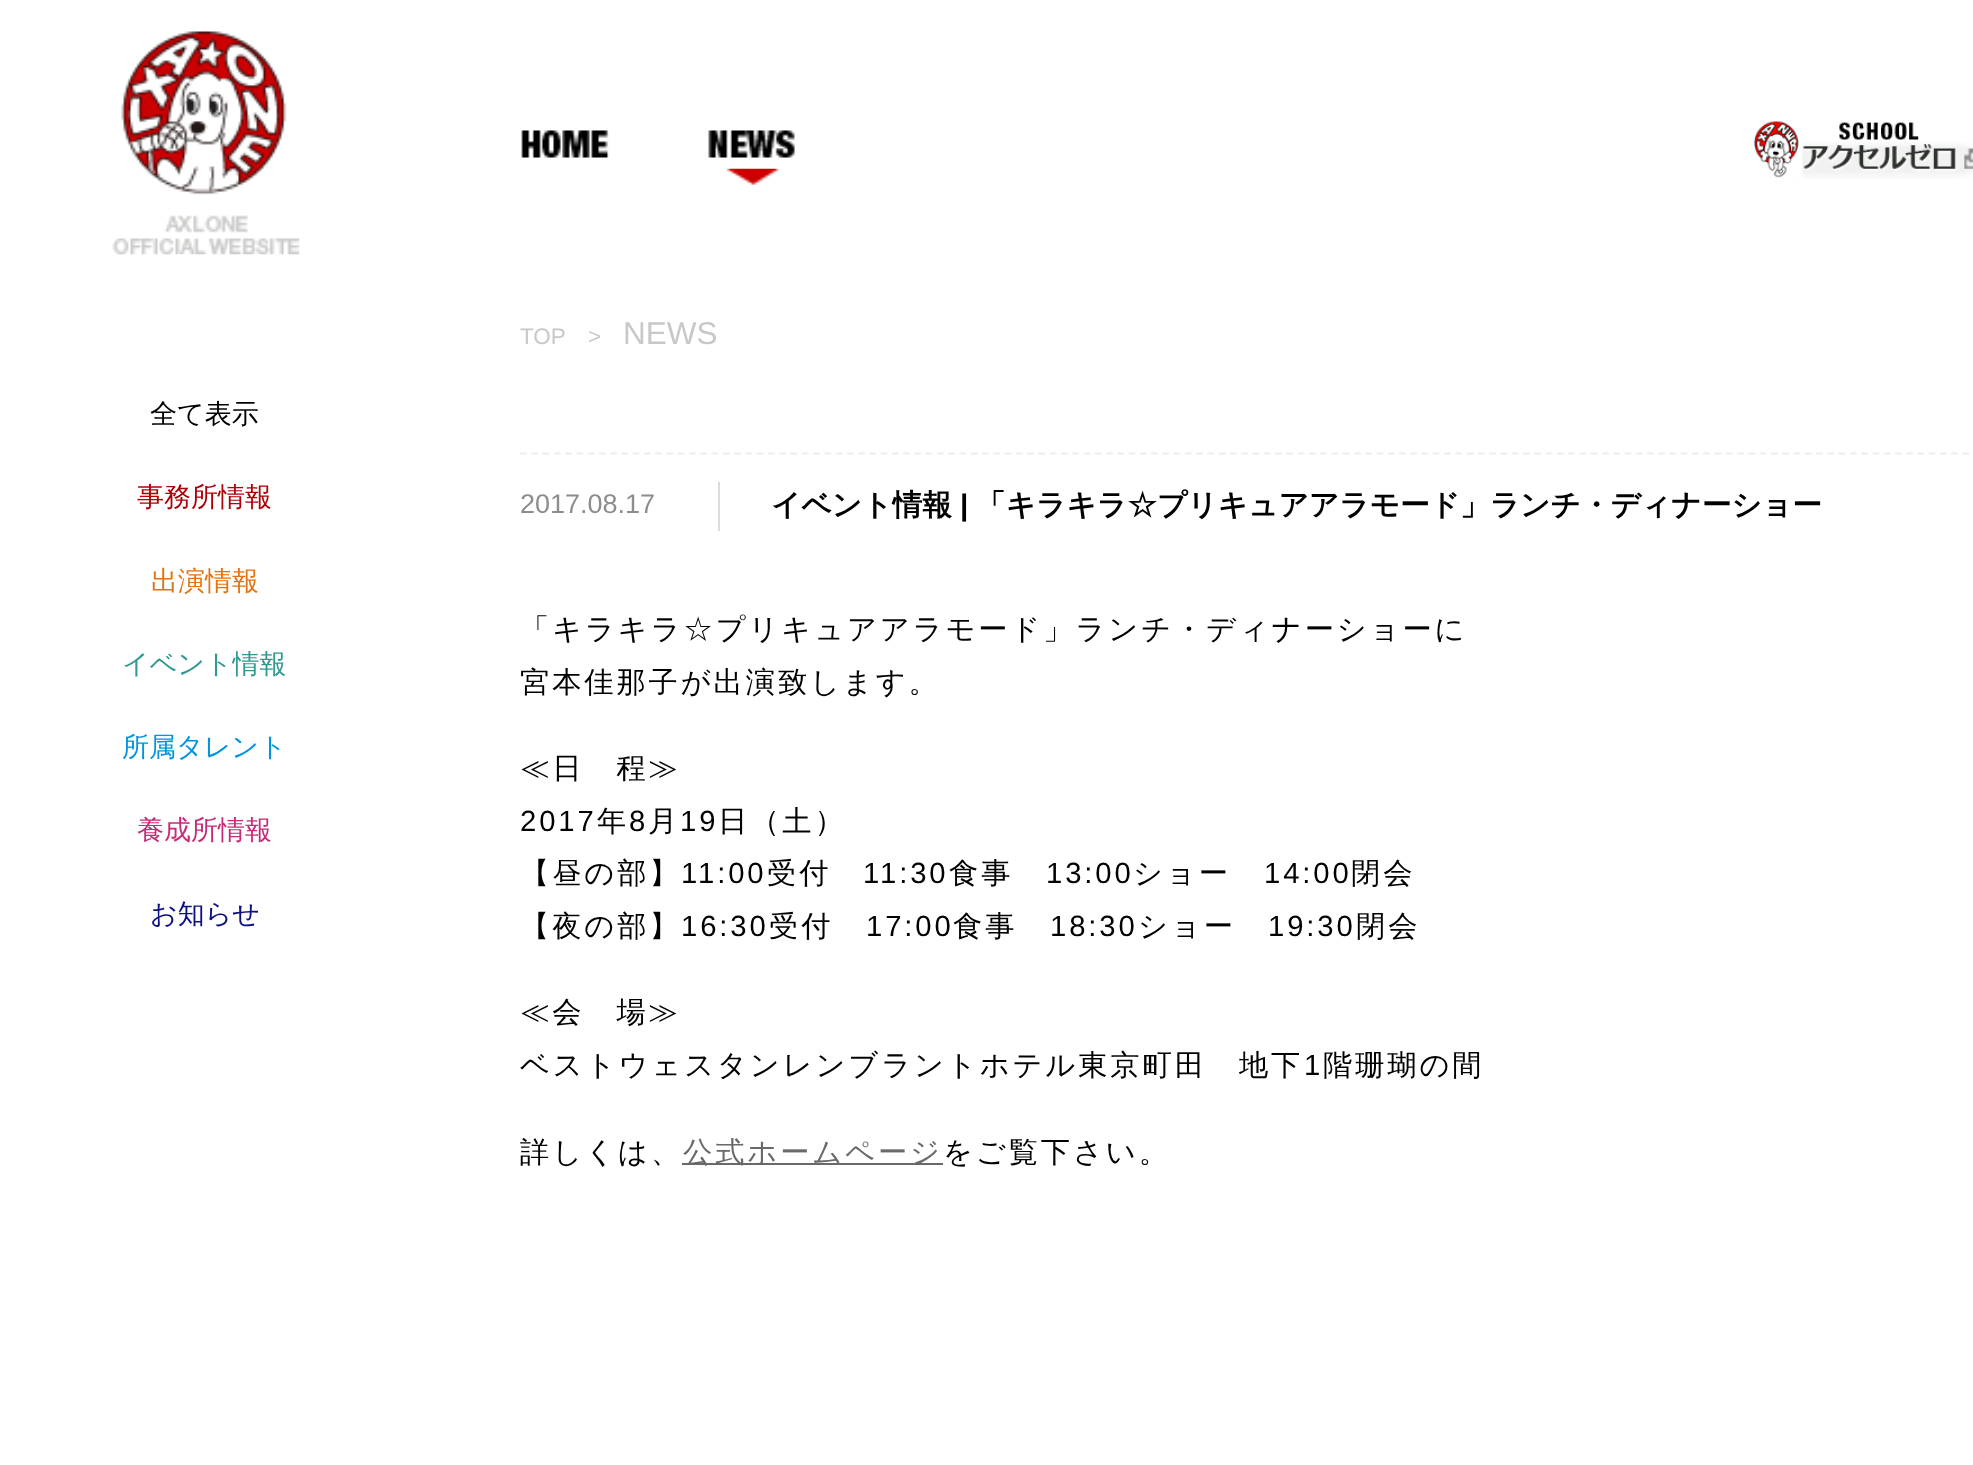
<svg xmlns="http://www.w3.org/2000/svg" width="1973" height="1465">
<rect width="100%" height="100%" fill="#fff"/>
<image x="112" y="31" width="188" height="224" href="media/1.png"/>
<image x="521" y="130" width="88" height="28" href="media/2.png"/>
<image x="726" y="168" width="53" height="17" href="media/3.png"/>
<image x="708" y="130" width="87" height="28" href="media/4.png"/>
<image x="1753" y="121" width="220" height="58" href="media/5.png"/>
<text x="150" y="423" style="font-family:WenQuanYi Zen Hei;font-size:27px;font-weight:500;fill:#000">全て表示</text>
<text x="137" y="506" style="font-family:WenQuanYi Zen Hei;font-size:27px;font-weight:500;fill:#ad0008">事務所情報</text>
<text x="151" y="590" style="font-family:WenQuanYi Zen Hei;font-size:27px;font-weight:500;fill:#e27413">出演情報</text>
<text x="122" y="673" style="font-family:WenQuanYi Zen Hei;font-size:27px;font-weight:500;fill:#319990">イベント情報</text>
<text x="122" y="756" style="font-family:WenQuanYi Zen Hei;font-size:27px;font-weight:500;fill:#0095dd">所属タレント</text>
<text x="137" y="839" style="font-family:WenQuanYi Zen Hei;font-size:27px;font-weight:500;fill:#c72a78">養成所情報</text>
<text x="150" y="923" style="font-family:WenQuanYi Zen Hei;font-size:27px;font-weight:500;fill:#0d1081">お知らせ</text>
<text x="520" y="344" style="font-family:Liberation Sans;font-size:22.5px;fill:#c8c8c8">TOP</text>
<text x="588" y="344" style="font-family:Liberation Sans;font-size:22.5px;fill:#c8c8c8">&gt;</text>
<text x="623" y="344" style="font-family:Liberation Sans;font-size:31.5px;fill:#c8c8c8">NEWS</text>
<path d="M520 453.5h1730" fill="none" stroke="#ededed" stroke-width="2.2" stroke-dasharray="6.75 4.52"/>
<text x="520" y="513" style="font-family:Liberation Sans;font-size:27px;fill:#8d8d8d">2017.08.17</text>
<rect x="718" y="482" width="2" height="49" fill="#dcdcdc"/>
<text x="771" y="515" style="font-family:WenQuanYi Zen Hei;font-size:29.7px;font-weight:bold;fill:#000">イベント情報</text>
<text x="960" y="515" style="font-family:Liberation Sans;font-size:29.7px;font-weight:bold;fill:#000">|</text>
<text x="976" y="515" style="font-family:WenQuanYi Zen Hei;font-size:29.7px;font-weight:bold;fill:#000">「キラキラ☆プリキュアアラモード」ランチ・ディナーショー</text>
<text x="520" y="639" style="font-family:WenQuanYi Zen Hei;font-size:29.25px;font-weight:500;letter-spacing:2.9px;fill:#000">「キラキラ☆プリキュアアラモード」ランチ・ディナーショーに</text>
<text x="520" y="692" style="font-family:WenQuanYi Zen Hei;font-size:29.25px;font-weight:500;letter-spacing:2.9px;fill:#000">宮本佳那子が出演致します。</text>
<text x="520" y="778" style="font-family:WenQuanYi Zen Hei;font-size:29.25px;font-weight:500;letter-spacing:2.9px;fill:#000">≪日　程≫</text>
<text x="520" y="831" style="font-family:Liberation Sans;font-size:29.25px;letter-spacing:2.9px;fill:#000">2017</text>
<text x="597" y="831" style="font-family:WenQuanYi Zen Hei;font-size:29.25px;font-weight:500;letter-spacing:2.9px;fill:#000">年</text>
<text x="629" y="831" style="font-family:Liberation Sans;font-size:29.25px;letter-spacing:2.9px;fill:#000">8</text>
<text x="648" y="831" style="font-family:WenQuanYi Zen Hei;font-size:29.25px;font-weight:500;letter-spacing:2.9px;fill:#000">月</text>
<text x="680" y="831" style="font-family:Liberation Sans;font-size:29.25px;letter-spacing:2.9px;fill:#000">19</text>
<text x="718" y="831" style="font-family:WenQuanYi Zen Hei;font-size:29.25px;font-weight:500;letter-spacing:2.9px;fill:#000">日（土）</text>
<text x="520" y="883" style="font-family:WenQuanYi Zen Hei;font-size:29.25px;font-weight:500;letter-spacing:2.9px;fill:#000">【昼の部】</text>
<text x="681" y="883" style="font-family:Liberation Sans;font-size:29.25px;letter-spacing:2.9px;fill:#000">11:00</text>
<text x="767" y="883" style="font-family:WenQuanYi Zen Hei;font-size:29.25px;font-weight:500;letter-spacing:2.9px;fill:#000">受付</text>
<text x="863" y="883" style="font-family:Liberation Sans;font-size:29.25px;letter-spacing:2.9px;fill:#000">11:30</text>
<text x="949" y="883" style="font-family:WenQuanYi Zen Hei;font-size:29.25px;font-weight:500;letter-spacing:2.9px;fill:#000">食事</text>
<text x="1046" y="883" style="font-family:Liberation Sans;font-size:29.25px;letter-spacing:2.9px;fill:#000">13:00</text>
<text x="1133" y="883" style="font-family:WenQuanYi Zen Hei;font-size:29.25px;font-weight:500;letter-spacing:2.9px;fill:#000">ショー</text>
<text x="1264" y="883" style="font-family:Liberation Sans;font-size:29.25px;letter-spacing:2.9px;fill:#000">14:00</text>
<text x="1351" y="883" style="font-family:WenQuanYi Zen Hei;font-size:29.25px;font-weight:500;letter-spacing:2.9px;fill:#000">閉会</text>
<text x="520" y="936" style="font-family:WenQuanYi Zen Hei;font-size:29.25px;font-weight:500;letter-spacing:2.9px;fill:#000">【夜の部】</text>
<text x="681" y="936" style="font-family:Liberation Sans;font-size:29.25px;letter-spacing:2.9px;fill:#000">16:30</text>
<text x="769" y="936" style="font-family:WenQuanYi Zen Hei;font-size:29.25px;font-weight:500;letter-spacing:2.9px;fill:#000">受付</text>
<text x="866" y="936" style="font-family:Liberation Sans;font-size:29.25px;letter-spacing:2.9px;fill:#000">17:00</text>
<text x="953" y="936" style="font-family:WenQuanYi Zen Hei;font-size:29.25px;font-weight:500;letter-spacing:2.9px;fill:#000">食事</text>
<text x="1050" y="936" style="font-family:Liberation Sans;font-size:29.25px;letter-spacing:2.9px;fill:#000">18:30</text>
<text x="1138" y="936" style="font-family:WenQuanYi Zen Hei;font-size:29.25px;font-weight:500;letter-spacing:2.9px;fill:#000">ショー</text>
<text x="1268" y="936" style="font-family:Liberation Sans;font-size:29.25px;letter-spacing:2.9px;fill:#000">19:30</text>
<text x="1356" y="936" style="font-family:WenQuanYi Zen Hei;font-size:29.25px;font-weight:500;letter-spacing:2.9px;fill:#000">閉会</text>
<text x="520" y="1022" style="font-family:WenQuanYi Zen Hei;font-size:29.25px;font-weight:500;letter-spacing:2.9px;fill:#000">≪会　場≫</text>
<text x="520" y="1075" style="font-family:WenQuanYi Zen Hei;font-size:29.25px;font-weight:500;letter-spacing:2.9px;fill:#000">ベストウェスタンレンブラントホテル東京町田　地下</text>
<text x="1304" y="1075" style="font-family:Liberation Sans;font-size:29.25px;letter-spacing:2.9px;fill:#000">1</text>
<text x="1323" y="1075" style="font-family:WenQuanYi Zen Hei;font-size:29.25px;font-weight:500;letter-spacing:2.9px;fill:#000">階珊瑚の間</text>
<text x="520" y="1162" style="font-family:WenQuanYi Zen Hei;font-size:29.25px;font-weight:500;letter-spacing:2.9px;fill:#000">詳しくは、</text>
<rect x="682" y="1163" width="261" height="2" fill="#696969"/>
<text x="683" y="1162" style="font-family:WenQuanYi Zen Hei;font-size:29.25px;font-weight:500;letter-spacing:2.9px;fill:#696969">公式ホームページ</text>
<text x="943" y="1162" style="font-family:WenQuanYi Zen Hei;font-size:29.25px;font-weight:500;letter-spacing:2.9px;fill:#000">をご覧下さい。</text>
</svg>
